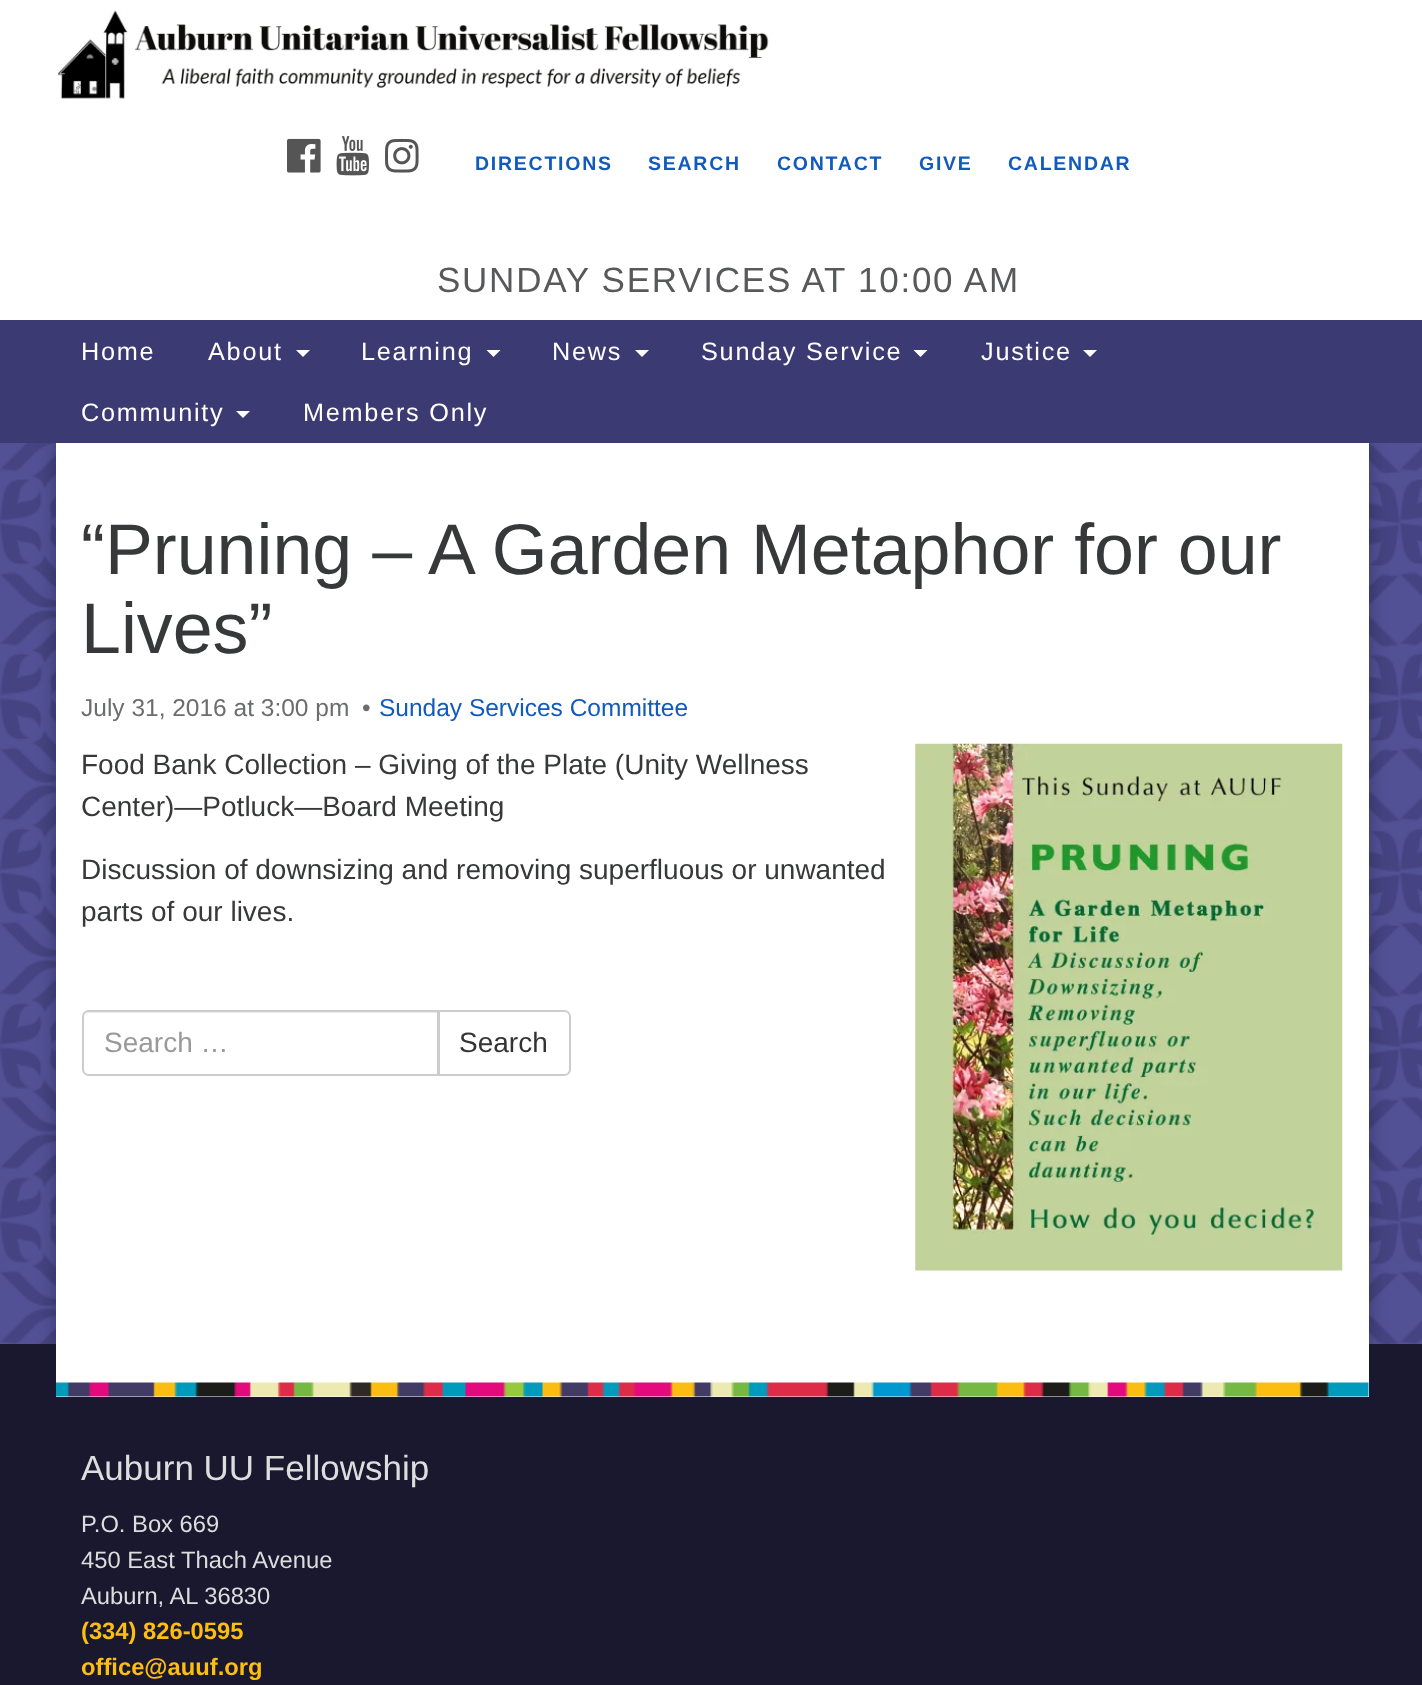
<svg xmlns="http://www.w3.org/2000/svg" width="1422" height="1685">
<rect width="100%" height="100%" fill="#fff"/>
<image x="0" y="443" width="1422" height="901" href="media/1.png"/>
<image x="57" y="10" width="712" height="89" href="media/2.png"/>
<image x="287" y="138" width="34" height="35" href="media/3.png"/>
<image x="336" y="136" width="33" height="40" href="media/4.png"/>
<image x="385" y="138" width="34" height="35" href="media/5.png"/>
<text x="475" y="170" style="font-family:Liberation Sans;font-size:19.5px;font-weight:bold;letter-spacing:1.75px;fill:#125abb">DIRECTIONS</text>
<text x="648" y="170" style="font-family:Liberation Sans;font-size:19.5px;font-weight:bold;letter-spacing:1.75px;fill:#125abb">SEARCH</text>
<text x="777" y="170" style="font-family:Liberation Sans;font-size:19.5px;font-weight:bold;letter-spacing:1.75px;fill:#125abb">CONTACT</text>
<text x="919" y="170" style="font-family:Liberation Sans;font-size:19.5px;font-weight:bold;letter-spacing:1.75px;fill:#125abb">GIVE</text>
<text x="1008" y="170" style="font-family:Liberation Sans;font-size:19.5px;font-weight:bold;letter-spacing:1.75px;fill:#125abb">CALENDAR</text>
<text x="437" y="292" style="font-family:Liberation Sans;font-size:35px;letter-spacing:1.75px;fill:#58595b">SUNDAY SERVICES AT 10:00 AM</text>
<rect x="56" y="443" width="1313" height="901" fill="#0000004d" filter="blur(9px)"/>
<rect y="320" width="1422" height="123" fill="#3c3a73"/>
<text x="81" y="360" style="font-family:Liberation Sans;font-size:25.25px;letter-spacing:1.75px;fill:#fff">Home</text>
<text x="208" y="360" style="font-family:Liberation Sans;font-size:25.25px;letter-spacing:1.75px;fill:#fff">About</text>
<path d="M296 350h14l-7 7z" fill="#fff"/>
<text x="361" y="360" style="font-family:Liberation Sans;font-size:25.25px;letter-spacing:1.75px;fill:#fff">Learning</text>
<path d="M486.5 350h14l-7 7z" fill="#fff"/>
<text x="552" y="360" style="font-family:Liberation Sans;font-size:25.25px;letter-spacing:1.75px;fill:#fff">News</text>
<path d="M635 350h14l-7 7z" fill="#fff"/>
<text x="701" y="360" style="font-family:Liberation Sans;font-size:25.25px;letter-spacing:1.75px;fill:#fff">Sunday Service</text>
<path d="M913.5 350h14l-7 7z" fill="#fff"/>
<text x="981" y="360" style="font-family:Liberation Sans;font-size:25.25px;letter-spacing:1.75px;fill:#fff">Justice</text>
<path d="M1083 350h14l-7 7z" fill="#fff"/>
<text x="81" y="421" style="font-family:Liberation Sans;font-size:25.25px;letter-spacing:1.75px;fill:#fff">Community</text>
<path d="M236 411h14l-7 7z" fill="#fff"/>
<text x="303" y="421" style="font-family:Liberation Sans;font-size:25.25px;letter-spacing:1.75px;fill:#fff">Members Only</text>
<rect x="56" y="443" width="1313" height="901" fill="#fff"/>
<text x="81" y="574" style="font-family:Liberation Sans;font-size:71.75px;fill:#373839">“Pruning – A Garden Metaphor for our</text>
<text x="81" y="653" style="font-family:Liberation Sans;font-size:71.75px;fill:#373839">Lives”</text>
<text x="81" y="716" style="font-family:Liberation Sans;font-size:24.5px;fill:#6c6d6f">July 31, 2016 at 3:00 pm</text>
<text x="362" y="716" style="font-family:Liberation Sans;font-size:24.5px;fill:#6c6d6f">•</text>
<text x="379" y="716" style="font-family:Liberation Sans;font-size:24.5px;fill:#125abb">Sunday Services Committee</text>
<text x="81" y="774" style="font-family:Liberation Sans;font-size:28px;fill:#373839">Food Bank Collection – Giving of the Plate (Unity Wellness</text>
<image x="915" y="743" width="428" height="528" href="media/6.png"/>
<text x="81" y="816" style="font-family:Liberation Sans;font-size:28px;fill:#373839">Center)—Potluck—Board Meeting</text>
<text x="81" y="879" style="font-family:Liberation Sans;font-size:28px;fill:#373839">Discussion of downsizing and removing superfluous or unwanted</text>
<text x="81" y="921" style="font-family:Liberation Sans;font-size:28px;fill:#373839">parts of our lives.</text>
<path d="M439 1011h125c3.5 0 6 2.5 6 6v52c0 3.5-2.5 6-6 6h-125z" fill="none" stroke="#ccc" stroke-width="2"/>
<path d="M89 1010h350v66h-350c-4 0-7-3-7-7v-52c0-4 3-7 7-7z" fill="#fff"/>
<path d="M89 1013h349v-1h-349c-3 0-5 3-5 6c0-2 2-5 5-5z" fill="#ececec"/>
<path d="M89 1011h349v64h-349c-3.5 0-6-2.5-6-6v-52c0-3.5 2.5-6 6-6z" fill="none" stroke="#ccc" stroke-width="2"/>
<text x="104" y="1052" style="font-family:Liberation Sans;font-size:28px;fill:#999">Search …</text>
<text x="459" y="1052" style="font-family:Liberation Sans;font-size:28px;fill:#333">Search</text>
<rect y="1344" width="1422" height="341" fill="#19182f"/>
<rect x="56" y="1344" width="1313" height="53" fill="#fff"/>
<image x="56" y="1382" width="1313" height="15" href="media/7.png"/>
<text x="81" y="1480" style="font-family:Liberation Sans;font-size:35px;fill:#ddd">Auburn UU Fellowship</text>
<text x="81" y="1532" style="font-family:Liberation Sans;font-size:23.75px;fill:#ddd">P.O. Box 669</text>
<text x="81" y="1568" style="font-family:Liberation Sans;font-size:23.75px;fill:#ddd">450 East Thach Avenue</text>
<text x="81" y="1604" style="font-family:Liberation Sans;font-size:23.75px;fill:#ddd">Auburn, AL 36830</text>
<text x="81" y="1639" style="font-family:Liberation Sans;font-size:23.75px;font-weight:bold;fill:#febe10">(334) 826-0595</text>
<text x="81" y="1675" style="font-family:Liberation Sans;font-size:23.75px;font-weight:bold;fill:#febe10">office@auuf.org</text>
</svg>
